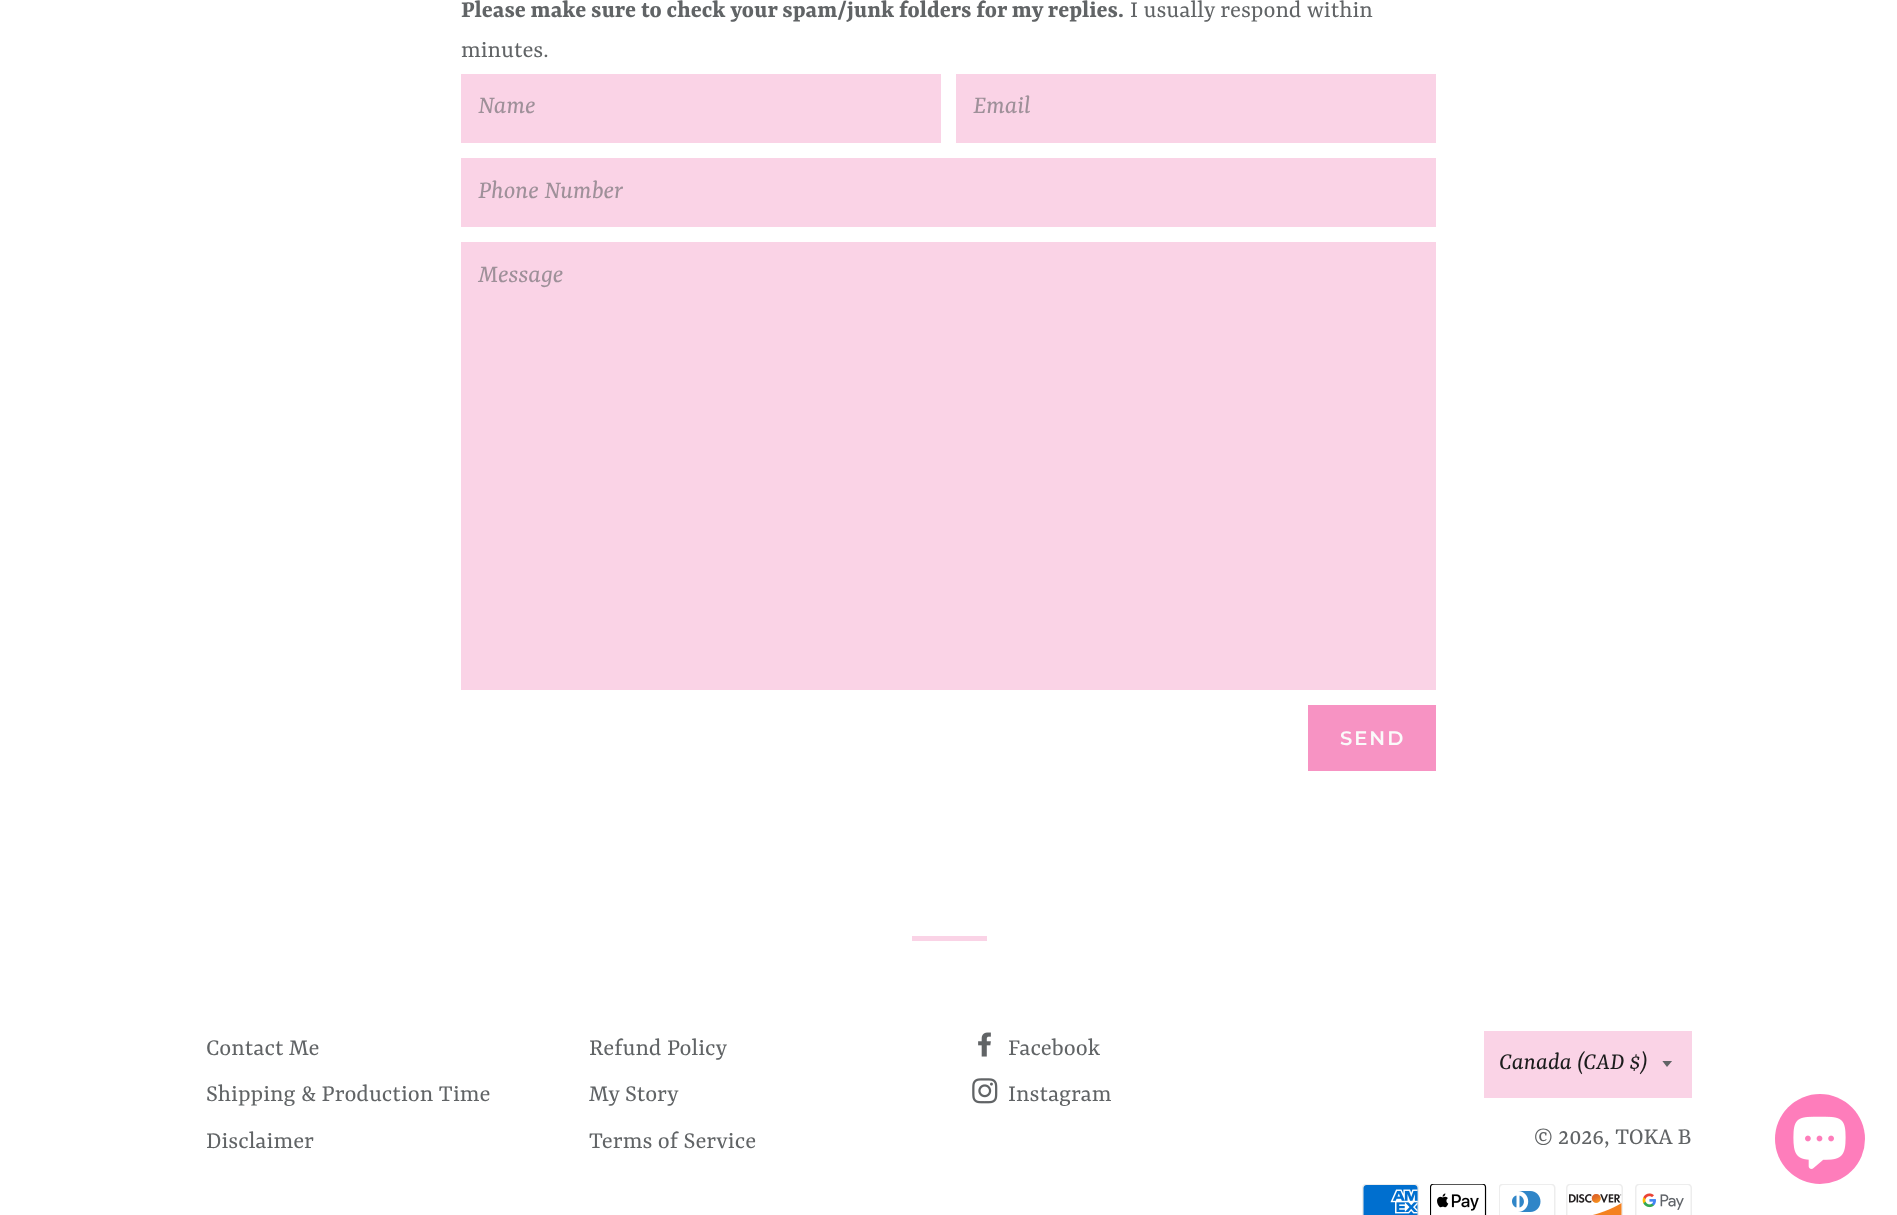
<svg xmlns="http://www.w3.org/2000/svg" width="1897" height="1215">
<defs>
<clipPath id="clip1"><rect x="1662" y="1061" width="12" height="7"/></clipPath>
</defs>
<rect width="100%" height="100%" fill="#fff"/>
<text x="461" y="17" style="font-family:Rasa;font-size:25.5px;font-weight:bold;fill:#616466">Please make sure to check your spam/junk folders for my replies.</text>
<text x="1130" y="17" style="font-family:Rasa;font-size:25.5px;fill:#616466">I usually respond within</text>
<text x="461" y="57" style="font-family:Rasa;font-size:25.5px;fill:#616466">minutes.</text>
<rect x="461" y="74" width="480" height="69" fill="#fad3e6"/>
<text x="478" y="113" style="font-family:Rasa;font-size:27px;font-style:italic;fill:#9e9099">Name</text>
<rect x="956" y="74" width="480" height="69" fill="#fad3e6"/>
<text x="973" y="113" style="font-family:Rasa;font-size:27px;font-style:italic;fill:#9e9099">Email</text>
<rect x="461" y="158" width="975" height="69" fill="#fad3e6"/>
<text x="478" y="198" style="font-family:Rasa;font-size:27px;font-style:italic;fill:#9e9099">Phone Number</text>
<rect x="461" y="242" width="975" height="448" fill="#fad3e6"/>
<text x="478" y="282" style="font-family:Rasa;font-size:27px;font-style:italic;fill:#9e9099">Message</text>
<rect x="1308" y="705" width="128" height="66" fill="#f793c3"/>
<text x="1340" y="745" style="font-family:Montserrat;font-size:19.5px;font-weight:600;letter-spacing:2px;fill:#fafafa">SEND</text>
<rect x="912" y="936" width="75" height="5" fill="#fad3e6"/>
<text x="206" y="1055" style="font-family:Rasa;font-size:25.5px;fill:#616466">Contact Me</text>
<text x="206" y="1101" style="font-family:Rasa;font-size:25.5px;fill:#616466">Shipping &amp; Production Time</text>
<text x="206" y="1148" style="font-family:Rasa;font-size:25.5px;fill:#616466">Disclaimer</text>
<text x="589" y="1055" style="font-family:Rasa;font-size:25.5px;fill:#616466">Refund Policy</text>
<text x="589" y="1101" style="font-family:Rasa;font-size:25.5px;fill:#616466">My Story</text>
<text x="589" y="1148" style="font-family:Rasa;font-size:25.5px;fill:#616466">Terms of Service</text>
<image x="978" y="1032" width="13" height="25" href="media/1.png"/>
<text x="1008" y="1055" style="font-family:Rasa;font-size:25.5px;fill:#616466">Facebook</text>
<image x="972" y="1078" width="26" height="26" href="media/2.png"/>
<text x="1008" y="1101" style="font-family:Rasa;font-size:25.5px;fill:#616466">Instagram</text>
<rect x="1484" y="1031" width="208" height="67" fill="#fad3e6"/>
<g clip-path="url(#clip1)">
<path d="M1662 1060.5l5 6.5l5.5-6.5z" fill="#616466"/>
</g>
<text x="1499" y="1069" style="font-family:Rasa;font-size:25.5px;font-style:italic;fill:#1c1d1d">Canada (CAD $)</text>
<text x="1534" y="1144" style="font-family:Rasa;font-size:25.5px;fill:#616466">© 2026, TOKA B</text>
<image x="1362" y="1184" width="57" height="31" href="media/3.png"/>
<image x="1430" y="1184" width="57" height="31" href="media/4.png"/>
<image x="1499" y="1184" width="57" height="31" href="media/5.png"/>
<image x="1566" y="1184" width="57" height="31" href="media/6.png"/>
<image x="1635" y="1184" width="57" height="31" href="media/7.png"/>
<circle cx="1820" cy="1139" r="45" fill="#fe7dbb"/>
<image x="1793" y="1116" width="53" height="53" href="media/8.png"/>
</svg>
